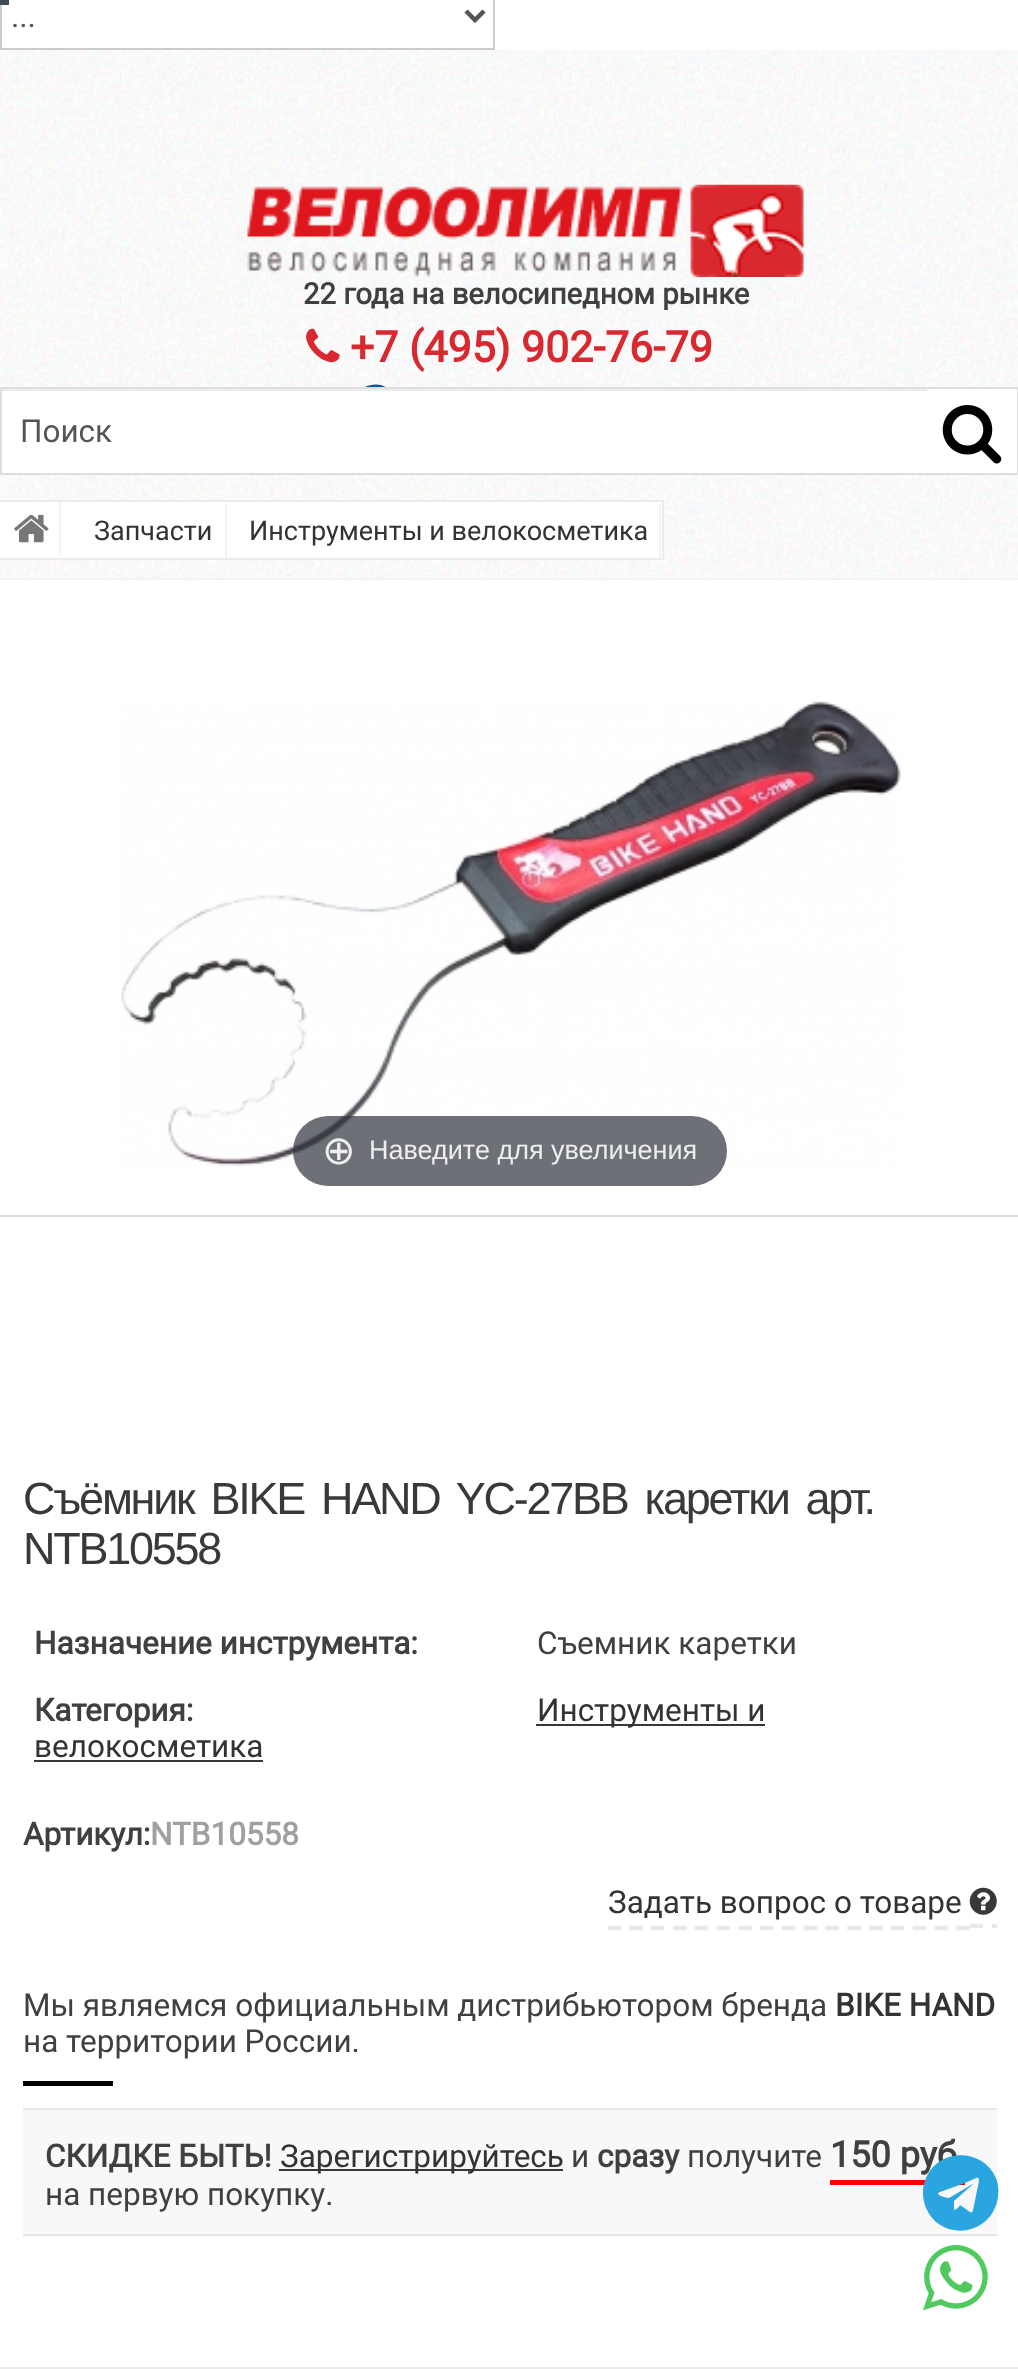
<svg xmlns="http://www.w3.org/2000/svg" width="1018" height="2369">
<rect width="100%" height="100%" fill="#fff"/>
<image x="0" y="50" width="1018" height="528" href="media/1.png"/>
<rect x="1" y="-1" width="493" height="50" fill="none" stroke="#ccc" stroke-width="2"/>
<rect width="9" height="5" fill="#414a55"/>
<path d="M466 11l9 9l9-9" fill="none" stroke="#555" stroke-width="4.5"/>
<text x="11" y="27" style="font-family:Roboto;font-size:31.5px;fill:#555">...</text>
<image x="247" y="184" width="557" height="93" href="media/2.png"/>
<text x="303" y="304" style="font-family:Roboto;font-size:29.25px;font-weight:bold;fill:#404040">22 года на велосипедном рынке</text>
<image x="306" y="328" width="34" height="35" href="media/3.png"/>
<text x="350" y="362" style="font-family:Roboto;font-size:42.75px;font-weight:bold;fill:#d92930">+7 (495) 902-76-79</text>
<path d="M382 419l4-18c1-4-5-1-5 0l-20 8c-1 1 5 2 6 3l14-9c0 0 1 0 1 0l-11 10l-1 6l4-3c2 1 8 7 8 3zm14-20c13 29-31 47-43 19c-12-29 31-48 43-19z" fill="#0b559b"/>
<rect x="1" y="388" width="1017" height="86" fill="none" stroke="#ddd" stroke-width="2"/>
<rect x="2" y="391" width="925" height="82" fill="#fff"/>
<rect x="2" y="389" width="925" height="2" fill="#ececec"/>
<text x="20" y="442" style="font-family:Roboto;font-size:31.5px;fill:#555">Поиск</text>
<rect x="927" y="389" width="90" height="84" fill="#fff"/>
<image x="942" y="405" width="60" height="59" href="media/4.png"/>
<rect x="-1" y="501" width="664" height="58" fill="#fff" stroke="#ebebeb" stroke-width="2"/>
<rect x="59" y="502" width="2" height="54" fill="#f3f3f3"/>
<image x="14" y="514" width="35" height="29" href="media/5.png"/>
<rect x="225" y="504" width="2" height="54" fill="#f3f3f3"/>
<text x="94" y="540" style="font-family:Roboto;font-size:27px;fill:#333">Запчасти</text>
<rect x="659" y="504" width="2" height="54" fill="#f3f3f3"/>
<text x="249" y="540" style="font-family:Roboto;font-size:27px;fill:#333">Инструменты и велокосметика</text>
<rect y="578" width="1018" height="2" fill="#f3f3f3"/>
<image x="121" y="701" width="780" height="466" href="media/6.png"/>
<rect x="293" y="1116" width="434" height="70" rx="35" fill="#31333db3"/>
<text x="322" y="1164" style="font-family:DejaVu Sans;font-size:40px;fill:#eee">⊕</text>
<text x="369" y="1159" style="font-family:Liberation Sans;font-size:27px;fill:#eee">Наведите для увеличения</text>
<rect y="1215" width="1018" height="2" fill="#ddd"/>
<text x="23" y="1514" word-spacing="6.75" style="font-family:Liberation Sans;font-size:45px;letter-spacing:-2.25px;fill:#3a3939">Съёмник BIKE HAND YC-27BB каретки арт.</text>
<text x="23" y="1564" style="font-family:Liberation Sans;font-size:45px;letter-spacing:-2.25px;fill:#3a3939">NTB10558</text>
<text x="34" y="1654" style="font-family:Roboto;font-size:31.5px;font-weight:bold;fill:#404040">Назначение инструмента:</text>
<text x="537" y="1654" style="font-family:Roboto;font-size:31.5px;fill:#404040">Съемник каретки</text>
<text x="34" y="1721" style="font-family:Roboto;font-size:31.5px;font-weight:bold;fill:#404040">Категория:</text>
<rect x="536" y="1724" width="229" height="2" fill="#383838"/>
<text x="537" y="1721" style="font-family:Roboto;font-size:31.5px;fill:#333">Инструменты и</text>
<text x="34" y="1757" style="font-family:Roboto;font-size:31.5px;fill:#333">велокосметика</text>
<rect x="34" y="1760" width="229" height="2" fill="#383838"/>
<text x="23" y="1845" style="font-family:Roboto;font-size:31.5px;font-weight:bold;fill:#404040">Артикул:</text>
<text x="150" y="1845" style="font-family:Roboto;font-size:31.5px;font-weight:bold;fill:#a0a0a0">NTB10558</text>
<path d="M607.5 1928h362.5" fill="none" stroke="#e9e9e9" stroke-width="4.5" stroke-dasharray="13.5 8.3"/>
<path d="M970 1926h13m9 0h5" fill="none" stroke="#e9e9e9" stroke-width="4.5"/>
<text x="608" y="1913" style="font-family:Roboto;font-size:31.5px;fill:#333">Задать вопрос о товаре</text>
<image x="969" y="1887" width="28" height="28" href="media/7.png"/>
<text x="23" y="2016" style="font-family:Roboto;font-size:31.5px;fill:#404040">Мы являемся официальным дистрибьютором бренда</text>
<text x="835" y="2016" style="font-family:Roboto;font-size:31.5px;font-weight:bold;fill:#333">BIKE HAND</text>
<text x="23" y="2052" style="font-family:Roboto;font-size:31.5px;fill:#404040">на территории России.</text>
<rect x="23" y="2081" width="90" height="5" fill="#000"/>
<rect x="23" y="2110" width="974" height="127" fill="#f8f8f8"/>
<rect x="23" y="2108" width="974" height="2" fill="#e8e6df"/>
<rect x="23" y="2234" width="974" height="2" fill="#e8e6df"/>
<text x="45" y="2167" style="font-family:Roboto;font-size:31.5px;font-weight:bold;fill:#404040">СКИДКЕ БЫТЬ!</text>
<rect x="279" y="2169" width="284" height="2" fill="#383838"/>
<text x="280" y="2167" style="font-family:Roboto;font-size:31.5px;fill:#333">Зарегистрируйтесь</text>
<text x="571" y="2167" style="font-family:Roboto;font-size:31.5px;fill:#404040">и</text>
<text x="597" y="2167" style="font-family:Roboto;font-size:31.5px;font-weight:bold;fill:#404040">сразу</text>
<text x="687" y="2167" style="font-family:Roboto;font-size:31.5px;fill:#404040">получите</text>
<text x="830" y="2167" style="font-family:Roboto;font-size:36px;font-weight:bold;fill:#404040">150 руб</text>
<rect x="830" y="2180" width="135" height="5" fill="#fd0000"/>
<text x="45" y="2205" style="font-family:Roboto;font-size:31.5px;fill:#404040">на первую покупку.</text>
<rect x="1" y="2368" width="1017" height="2" fill="none" stroke="#ebebeb" stroke-width="2"/>
<path d="M973 2210l5-24c3-13-1-8-13-3l-25 9c-7 3 8 6 9 6l22-13c0-1 2-1 1 0l-18 16v9c2 0 5-3 6-5l10 7c1 1 3 0 3-2zm23-32c3 8 3 16 1 24c-9 35-57 39-71 6c-3-8-4-16-2-24c9-35 57-39 72-6z" fill="#2aa5e0"/>
<image x="923" y="2245" width="65" height="66" href="media/8.png"/>
</svg>
